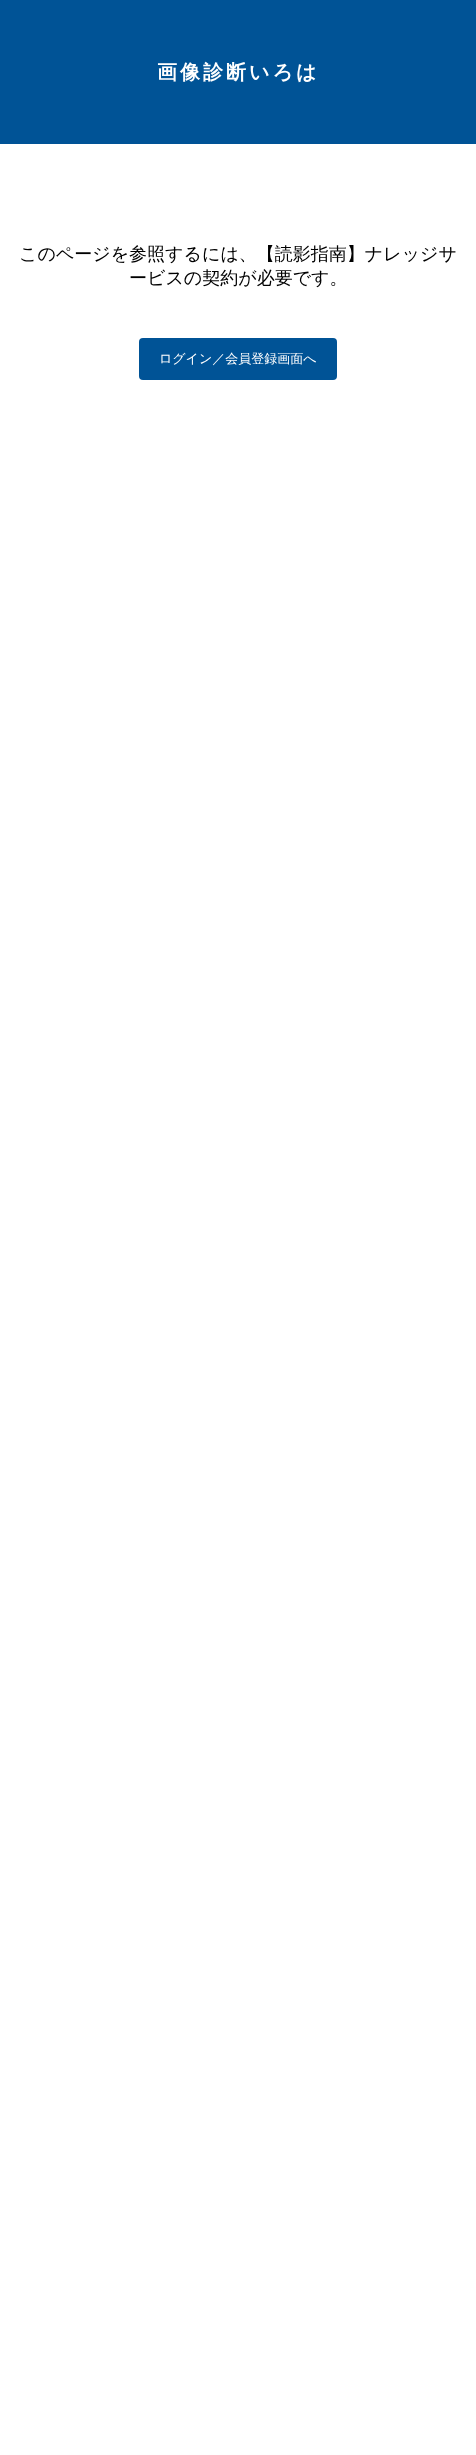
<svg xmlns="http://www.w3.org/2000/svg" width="476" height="2455">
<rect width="100%" height="100%" fill="#fff"/>
<rect width="476" height="144" fill="#005396"/>
<text x="157" y="79" style="font-family:WenQuanYi Zen Hei;font-size:20px;font-weight:bold;letter-spacing:3px;fill:#fff">画像診断いろは</text>
<text x="19" y="260" style="font-family:WenQuanYi Zen Hei;font-size:18px;font-weight:500;fill:#000">このページを参照するには、【読影指南】ナレッジサ</text>
<text x="129" y="284" style="font-family:WenQuanYi Zen Hei;font-size:18px;font-weight:500;fill:#000">ービスの契約が必要です。</text>
<rect x="139" y="338" width="198" height="42" rx="4" fill="#005396"/>
<text x="159" y="363" style="font-family:WenQuanYi Zen Hei;font-size:13px;font-weight:500;fill:#fff">ログイン／会員登録画面へ</text>
</svg>
